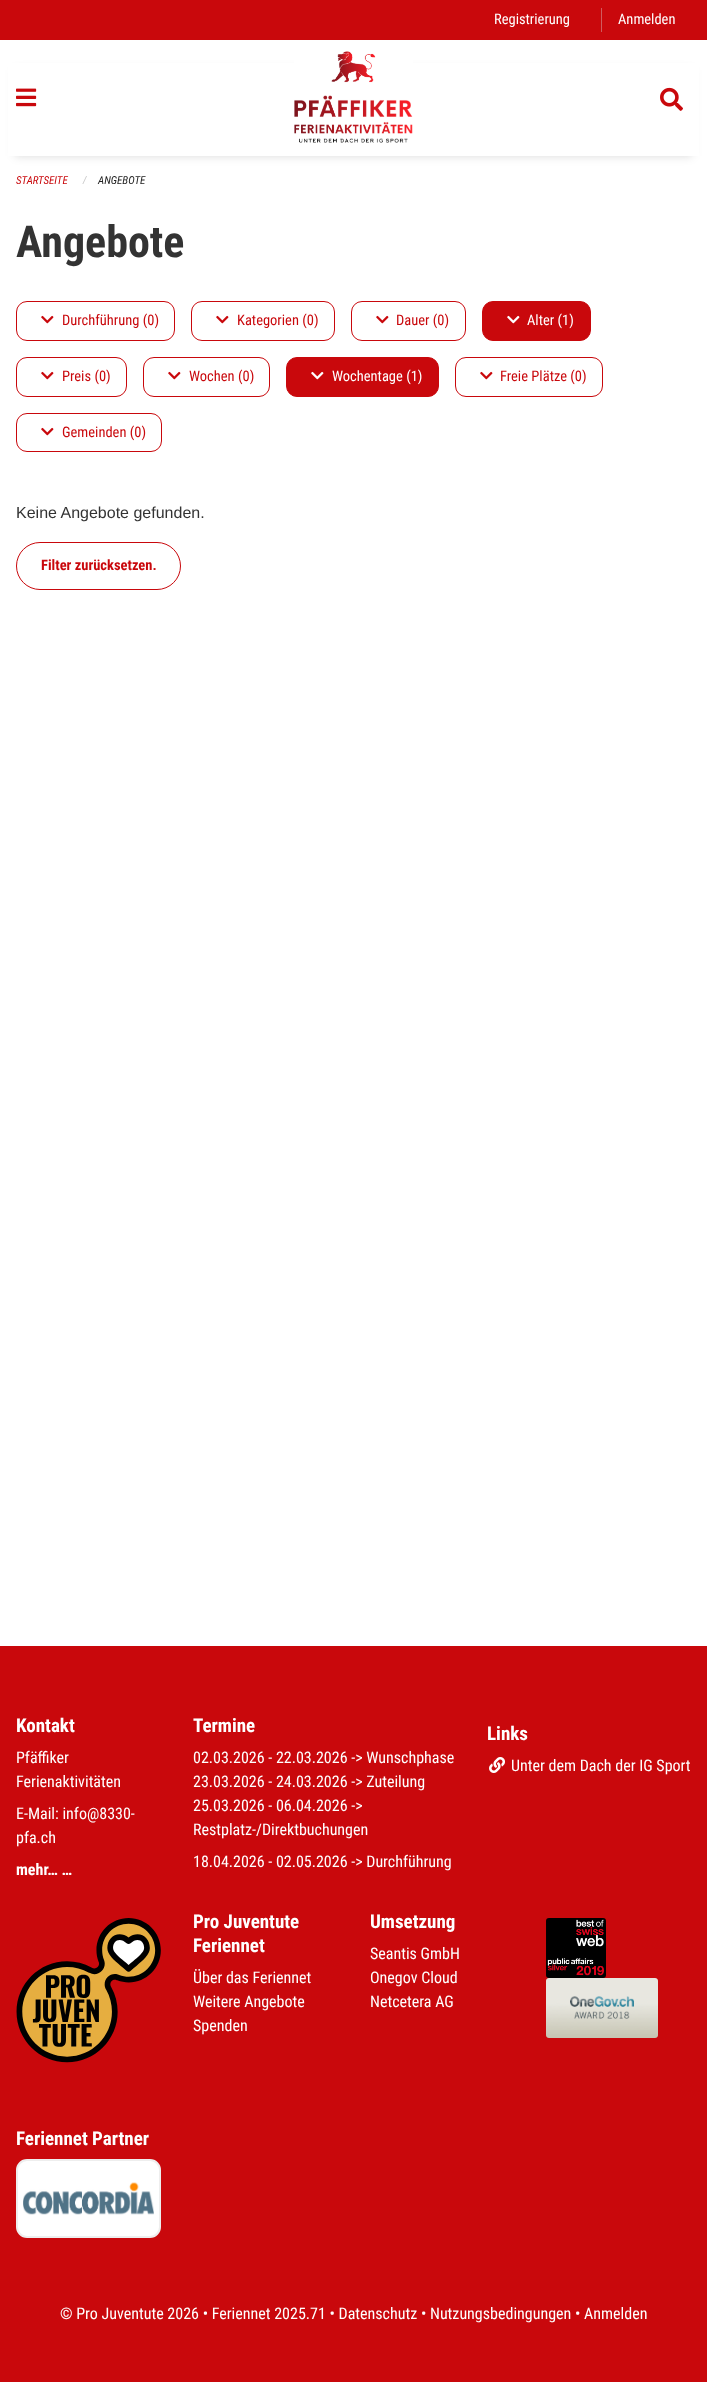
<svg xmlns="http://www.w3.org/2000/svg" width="707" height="2382">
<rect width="100%" height="100%" fill="#fff"/>
<rect width="707" height="40" fill="#c9080c"/>
<text x="494" y="24" style="font-family:Roboto Condensed;font-size:14.5px;fill:#fff">Registrierung</text>
<rect x="601" y="8" width="1" height="24" fill="#d05b5e"/>
<text x="618" y="24" style="font-family:Roboto Condensed;font-size:14.5px;fill:#fff">Anmelden</text>
<rect x="15" y="70" width="677" height="86" fill="#00000026" filter="blur(5px)"/>
<rect x="8" y="63" width="691" height="93" fill="#fff"/>
<image x="16" y="88" width="21" height="19" href="media/1.png"/>
<image x="294" y="51" width="119" height="92" href="media/2.png"/>
<image x="660" y="87" width="23" height="24" href="media/3.png"/>
<text x="16" y="184" style="font-family:Roboto Condensed;font-size:11px;font-style:italic;fill:#c9080c">STARTSEITE</text>
<text x="83" y="184" style="font-family:Liberation Sans;font-size:11px;font-style:italic;fill:#cacaca">/</text>
<text x="98" y="184" style="font-family:Roboto Condensed;font-size:11px;font-style:italic;fill:#222">ANGEBOTE</text>
<text x="16" y="257" style="font-family:Roboto Condensed;font-size:44px;font-weight:bold;fill:#333">Angebote</text>
<rect x="16.5" y="301.5" width="158" height="39" rx="10.5" fill="none" stroke="#c9080c"/>
<image x="41" y="315" width="13" height="9" href="media/4.png"/>
<text x="62" y="325" style="font-family:Roboto Condensed;font-size:14.5px;fill:#c9080c">Durchführung (0)</text>
<rect x="191.5" y="301.5" width="143" height="39" rx="10.5" fill="none" stroke="#c9080c"/>
<image x="216" y="315" width="13" height="9" href="media/4.png"/>
<text x="237" y="325" style="font-family:Roboto Condensed;font-size:14.5px;fill:#c9080c">Kategorien (0)</text>
<rect x="351.5" y="301.5" width="114" height="39" rx="10.5" fill="none" stroke="#c9080c"/>
<image x="376" y="315" width="13" height="9" href="media/4.png"/>
<text x="396" y="325" style="font-family:Roboto Condensed;font-size:14.5px;fill:#c9080c">Dauer (0)</text>
<rect x="482.5" y="301.5" width="108" height="39" rx="10.5" fill="#c9080c" stroke="#c9080c"/>
<image x="507" y="315" width="13" height="9" href="media/5.png"/>
<text x="527" y="325" style="font-family:Roboto Condensed;font-size:14.5px;fill:#fff">Alter (1)</text>
<rect x="16.5" y="357.5" width="110" height="39" rx="10.5" fill="none" stroke="#c9080c"/>
<image x="41" y="371" width="13" height="9" href="media/4.png"/>
<text x="62" y="381" style="font-family:Roboto Condensed;font-size:14.5px;fill:#c9080c">Preis (0)</text>
<rect x="143.5" y="357.5" width="126" height="39" rx="10.5" fill="none" stroke="#c9080c"/>
<image x="168" y="371" width="13" height="9" href="media/4.png"/>
<text x="189" y="381" style="font-family:Roboto Condensed;font-size:14.5px;fill:#c9080c">Wochen (0)</text>
<rect x="286.5" y="357.5" width="152" height="39" rx="10.5" fill="#c9080c" stroke="#c9080c"/>
<image x="311" y="371" width="13" height="9" href="media/5.png"/>
<text x="332" y="381" style="font-family:Roboto Condensed;font-size:14.5px;fill:#fff">Wochentage (1)</text>
<rect x="455.5" y="357.5" width="147" height="39" rx="10.5" fill="none" stroke="#c9080c"/>
<image x="480" y="371" width="13" height="9" href="media/4.png"/>
<text x="500" y="381" style="font-family:Roboto Condensed;font-size:14.5px;fill:#c9080c">Freie Plätze (0)</text>
<rect x="16.5" y="413.5" width="145" height="38" rx="10.5" fill="none" stroke="#c9080c"/>
<image x="41" y="427" width="13" height="9" href="media/4.png"/>
<text x="62" y="437" style="font-family:Roboto Condensed;font-size:14.5px;fill:#c9080c">Gemeinden (0)</text>
<text x="16" y="518" style="font-family:Liberation Sans;font-size:16px;fill:#333">Keine Angebote gefunden.</text>
<rect x="16.5" y="542.5" width="164" height="47" rx="23.5" fill="none" stroke="#c9080c"/>
<text x="41" y="570" style="font-family:Roboto Condensed;font-size:14.5px;font-weight:bold;fill:#c9080c">Filter zurücksetzen.</text>
<rect y="1646" width="707" height="736" fill="#c9080c"/>
<text x="16" y="1732" style="font-family:Roboto Condensed;font-size:19px;font-weight:bold;fill:#fff">Kontakt</text>
<text x="16" y="1763" style="font-family:Roboto Condensed;font-size:16px;fill:#fff">Pfäffiker</text>
<text x="16" y="1787" style="font-family:Roboto Condensed;font-size:16px;fill:#fff">Ferienaktivitäten</text>
<text x="16" y="1819" style="font-family:Roboto Condensed;font-size:16px;fill:#fff">E-Mail: info@8330-</text>
<text x="16" y="1843" style="font-family:Roboto Condensed;font-size:16px;fill:#fff">pfa.ch</text>
<text x="16" y="1875" style="font-family:Roboto Condensed;font-size:16px;font-weight:bold;fill:#fff">mehr… …</text>
<text x="193" y="1732" style="font-family:Roboto Condensed;font-size:19px;font-weight:bold;fill:#fff">Termine</text>
<text x="193" y="1763" style="font-family:Roboto Condensed;font-size:16px;fill:#fff">02.03.2026 - 22.03.2026 -&gt; Wunschphase</text>
<text x="193" y="1787" style="font-family:Roboto Condensed;font-size:16px;fill:#fff">23.03.2026 - 24.03.2026 -&gt; Zuteilung</text>
<text x="193" y="1811" style="font-family:Roboto Condensed;font-size:16px;fill:#fff">25.03.2026 - 06.04.2026 -&gt;</text>
<text x="193" y="1835" style="font-family:Roboto Condensed;font-size:16px;fill:#fff">Restplatz-/Direktbuchungen</text>
<text x="193" y="1867" style="font-family:Roboto Condensed;font-size:16px;fill:#fff">18.04.2026 - 02.05.2026 -&gt; Durchführung</text>
<text x="487" y="1740" style="font-family:Roboto Condensed;font-size:19px;font-weight:bold;fill:#fff">Links</text>
<image x="489" y="1757" width="16" height="16" href="media/6.png"/>
<text x="511" y="1771" style="font-family:Roboto Condensed;font-size:16px;fill:#fff">Unter dem Dach der IG Sport</text>
<image x="16" y="1918" width="145" height="145" href="media/7.png"/>
<text x="193" y="1928" style="font-family:Roboto Condensed;font-size:19px;font-weight:bold;fill:#fff">Pro Juventute</text>
<text x="193" y="1952" style="font-family:Roboto Condensed;font-size:19px;font-weight:bold;fill:#fff">Feriennet</text>
<text x="193" y="1983" style="font-family:Roboto Condensed;font-size:16px;fill:#fff">Über das Feriennet</text>
<text x="193" y="2007" style="font-family:Roboto Condensed;font-size:16px;fill:#fff">Weitere Angebote</text>
<text x="193" y="2031" style="font-family:Roboto Condensed;font-size:16px;fill:#fff">Spenden</text>
<text x="370" y="1928" style="font-family:Roboto Condensed;font-size:19px;font-weight:bold;fill:#fff">Umsetzung</text>
<text x="370" y="1959" style="font-family:Roboto Condensed;font-size:16px;fill:#fff">Seantis GmbH</text>
<text x="370" y="1983" style="font-family:Roboto Condensed;font-size:16px;fill:#fff">Onegov Cloud</text>
<text x="370" y="2007" style="font-family:Roboto Condensed;font-size:16px;fill:#fff">Netcetera AG</text>
<image x="546" y="1918" width="60" height="60" href="media/8.png"/>
<image x="546" y="1978" width="112" height="60" href="media/9.png"/>
<text x="16" y="2145" style="font-family:Roboto Condensed;font-size:19px;font-weight:bold;fill:#fff">Feriennet Partner</text>
<rect x="17" y="2160" width="143" height="77" rx="10" fill="#fff" stroke="#eee" stroke-width="2"/>
<image x="23" y="2182" width="131" height="33" href="media/10.png"/>
<text x="60" y="2319" style="font-family:Roboto Condensed;font-size:16px;fill:#fff">© Pro Juventute 2026 • Feriennet 2025.71 • Datenschutz • Nutzungsbedingungen • Anmelden</text>
</svg>
